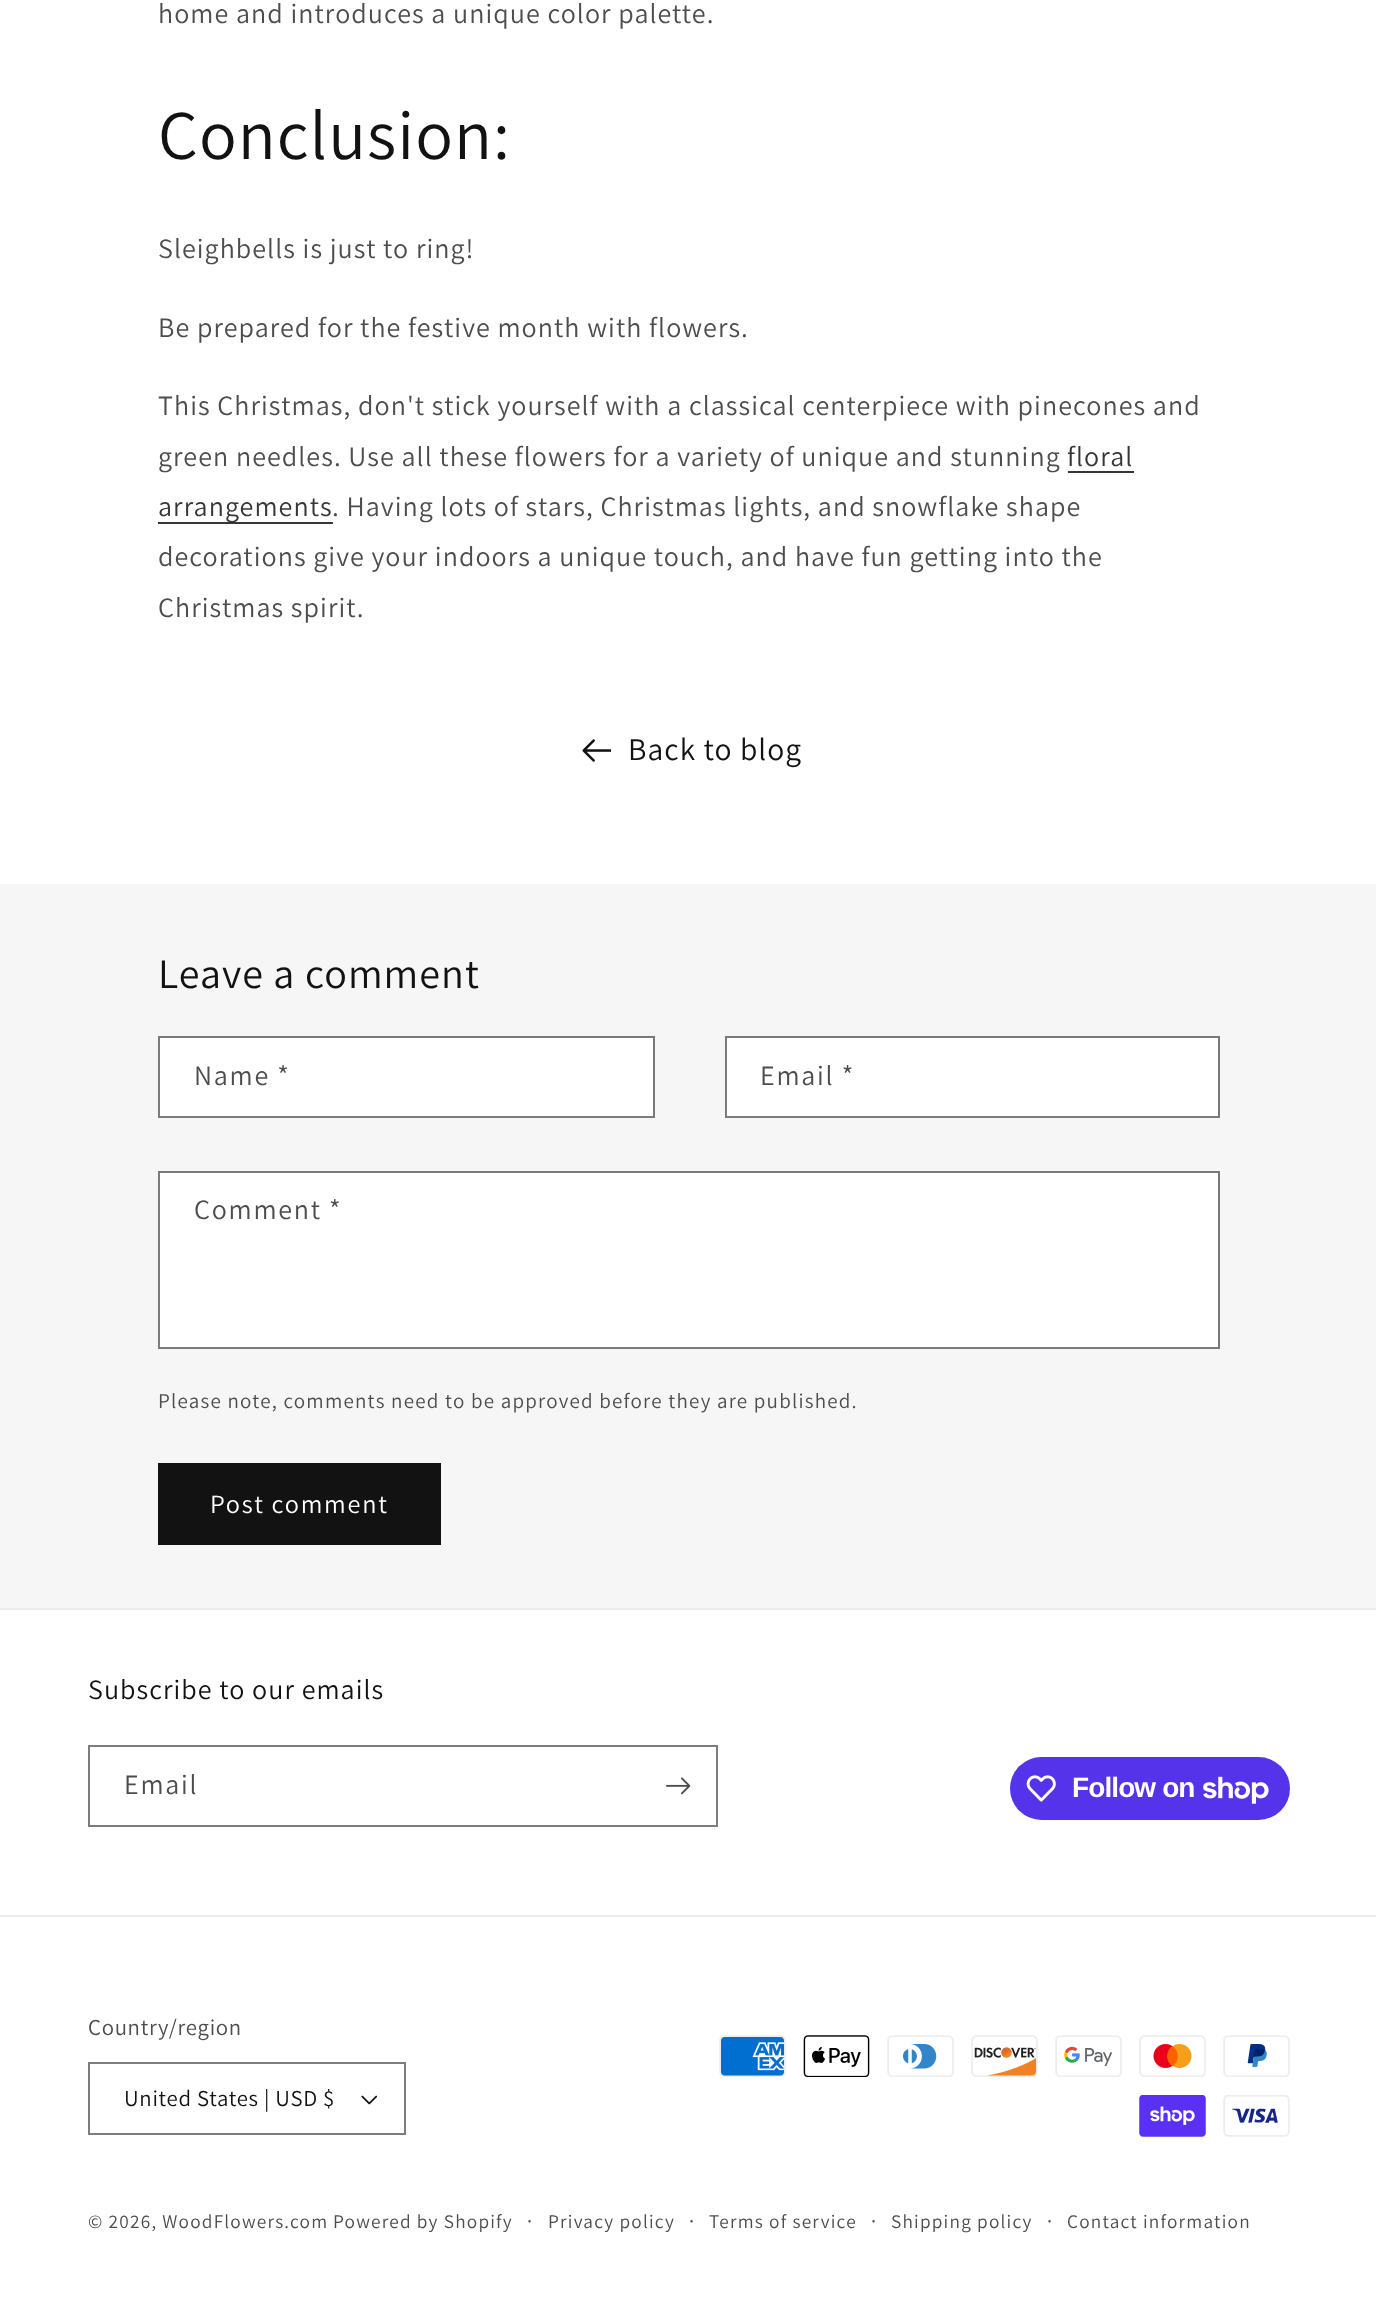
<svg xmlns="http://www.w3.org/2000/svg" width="1376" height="2302">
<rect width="100%" height="100%" fill="#fff"/>
<text x="158" y="23" style="font-family:Assistant;font-size:28px;letter-spacing:1.05px;fill:#4d4d4d">home and introduces a unique color palette.</text>
<text x="158" y="159" style="font-family:Assistant;font-size:70px;letter-spacing:1.05px;fill:#121212">Conclusion:</text>
<text x="158" y="258" style="font-family:Assistant;font-size:28px;letter-spacing:1.05px;fill:#4d4d4d">Sleighbells is just to ring!</text>
<text x="158" y="337" style="font-family:Assistant;font-size:28px;letter-spacing:1.05px;fill:#4d4d4d">Be prepared for the festive month with flowers.</text>
<text x="158" y="415" style="font-family:Assistant;font-size:28px;letter-spacing:1.05px;fill:#4d4d4d">This Christmas, don't stick yourself with a classical centerpiece with pinecones and</text>
<text x="158" y="466" style="font-family:Assistant;font-size:28px;letter-spacing:1.05px;fill:#4d4d4d">green needles. Use all these flowers for a variety of unique and stunning</text>
<text x="1067" y="466" style="font-family:Assistant;font-size:28px;letter-spacing:1.05px;fill:#363636">floral</text>
<rect x="1068" y="471" width="66" height="2" fill="#363636"/>
<rect x="158" y="522" width="175" height="2" fill="#363636"/>
<text x="158" y="516" style="font-family:Assistant;font-size:28px;letter-spacing:1.05px;fill:#363636">arrangements</text>
<text x="332" y="516" style="font-family:Assistant;font-size:28px;letter-spacing:1.05px;fill:#4d4d4d">. Having lots of stars, Christmas lights, and snowflake shape</text>
<text x="158" y="566" style="font-family:Assistant;font-size:28px;letter-spacing:1.05px;fill:#4d4d4d">decorations give your indoors a unique touch, and have fun getting into the</text>
<text x="158" y="617" style="font-family:Assistant;font-size:28px;letter-spacing:1.05px;fill:#4d4d4d">Christmas spirit.</text>
<image x="582" y="739" width="29" height="23" href="media/1.png"/>
<text x="628" y="760" style="font-family:Assistant;font-size:31.5px;letter-spacing:1.05px;fill:#121212">Back to blog</text>
<rect y="884" width="1376" height="724" fill="#f6f6f6"/>
<text x="158" y="988" style="font-family:Assistant;font-size:42px;letter-spacing:1.05px;fill:#121212">Leave a comment</text>
<rect x="159" y="1038" width="494" height="79" fill="#fff"/>
<rect x="159" y="1037" width="495" height="80" fill="none" stroke="#1212128c" stroke-width="2"/>
<text x="194" y="1085" style="font-family:Assistant;font-size:28px;letter-spacing:1.75px;fill:#4d4d4d">Name *</text>
<rect x="726" y="1038" width="492" height="79" fill="#fff"/>
<rect x="726" y="1037" width="493" height="80" fill="none" stroke="#1212128c" stroke-width="2"/>
<text x="760" y="1085" style="font-family:Assistant;font-size:28px;letter-spacing:1.75px;fill:#4d4d4d">Email *</text>
<rect x="159" y="1173" width="1059" height="175" fill="#fff"/>
<rect x="159" y="1172" width="1060" height="176" fill="none" stroke="#1212128c" stroke-width="2"/>
<text x="194" y="1219" style="font-family:Assistant;font-size:28px;letter-spacing:1.75px;fill:#4d4d4d">Comment *</text>
<text x="158" y="1408" style="font-family:Assistant;font-size:21px;letter-spacing:1.22px;fill:#4d4d4d">Please note, comments need to be approved before they are published.</text>
<rect x="158" y="1463" width="283" height="82" fill="#121212"/>
<text x="210" y="1513" style="font-family:Assistant;font-size:26.25px;letter-spacing:1.75px;fill:#fff">Post comment</text>
<rect y="1608" width="1376" height="2" fill="#ececec"/>
<text x="88" y="1699" style="font-family:Assistant;font-size:28px;letter-spacing:1.05px;fill:#121212">Subscribe to our emails</text>
<rect x="89" y="1746" width="628" height="80" fill="none" stroke="#7d7d7d" stroke-width="2"/>
<text x="124" y="1794" style="font-family:Assistant;font-size:28px;letter-spacing:1.75px;fill:#4d4d4d">Email</text>
<image x="666" y="1777" width="25" height="18" href="media/2.png"/>
<rect x="1010" y="1757" width="280" height="63" rx="31.5" fill="#5433eb"/>
<image x="1026" y="1775" width="30" height="27" href="media/3.png"/>
<text x="1072" y="1797" style="font-family:Liberation Sans;font-size:28px;font-weight:bold;letter-spacing:-0.9px;fill:#fff">Follow on</text>
<image x="1203" y="1776" width="66" height="28" href="media/4.png"/>
<rect y="1915" width="1376" height="2" fill="#ececec"/>
<text x="88" y="2035" style="font-family:Assistant;font-size:22.75px;letter-spacing:0.7px;fill:#4d4d4d">Country/region</text>
<image x="361" y="2095" width="17" height="10" href="media/5.png"/>
<rect x="89" y="2063" width="316" height="71" fill="none" stroke="#7d7d7d" stroke-width="2"/>
<text x="124" y="2106" style="font-family:Assistant;font-size:22.75px;letter-spacing:0.7px;fill:#121212">United States | USD $</text>
<image x="719" y="2035" width="67" height="42" href="media/6.png"/>
<image x="803" y="2035" width="67" height="42" href="media/7.png"/>
<image x="887" y="2035" width="67" height="42" href="media/8.png"/>
<image x="971" y="2035" width="67" height="42" href="media/9.png"/>
<image x="1055" y="2035" width="67" height="42" href="media/10.png"/>
<image x="1139" y="2035" width="67" height="42" href="media/11.png"/>
<image x="1223" y="2035" width="67" height="42" href="media/12.png"/>
<image x="1139" y="2095" width="67" height="42" href="media/13.png"/>
<image x="1223" y="2095" width="67" height="42" href="media/14.png"/>
<text x="88" y="2228" style="font-family:Assistant;font-size:19.25px;letter-spacing:1.22px;fill:#4d4d4d">© 2026, WoodFlowers.com</text>
<text x="333" y="2228" style="font-family:Assistant;font-size:19.25px;letter-spacing:1.22px;fill:#4d4d4d">Powered by Shopify</text>
<text x="527" y="2228" style="font-family:Assistant;font-size:21px;letter-spacing:1.22px;fill:#4d4d4d">·</text>
<text x="548" y="2228" style="font-family:Assistant;font-size:19.25px;letter-spacing:1.22px;fill:#4d4d4d">Privacy policy</text>
<text x="689" y="2228" style="font-family:Assistant;font-size:21px;letter-spacing:1.22px;fill:#4d4d4d">·</text>
<text x="709" y="2228" style="font-family:Assistant;font-size:19.25px;letter-spacing:1.22px;fill:#4d4d4d">Terms of service</text>
<text x="871" y="2228" style="font-family:Assistant;font-size:21px;letter-spacing:1.22px;fill:#4d4d4d">·</text>
<text x="891" y="2228" style="font-family:Assistant;font-size:19.25px;letter-spacing:1.22px;fill:#4d4d4d">Shipping policy</text>
<text x="1047" y="2228" style="font-family:Assistant;font-size:21px;letter-spacing:1.22px;fill:#4d4d4d">·</text>
<text x="1067" y="2228" style="font-family:Assistant;font-size:19.25px;letter-spacing:1.22px;fill:#4d4d4d">Contact information</text>
</svg>
